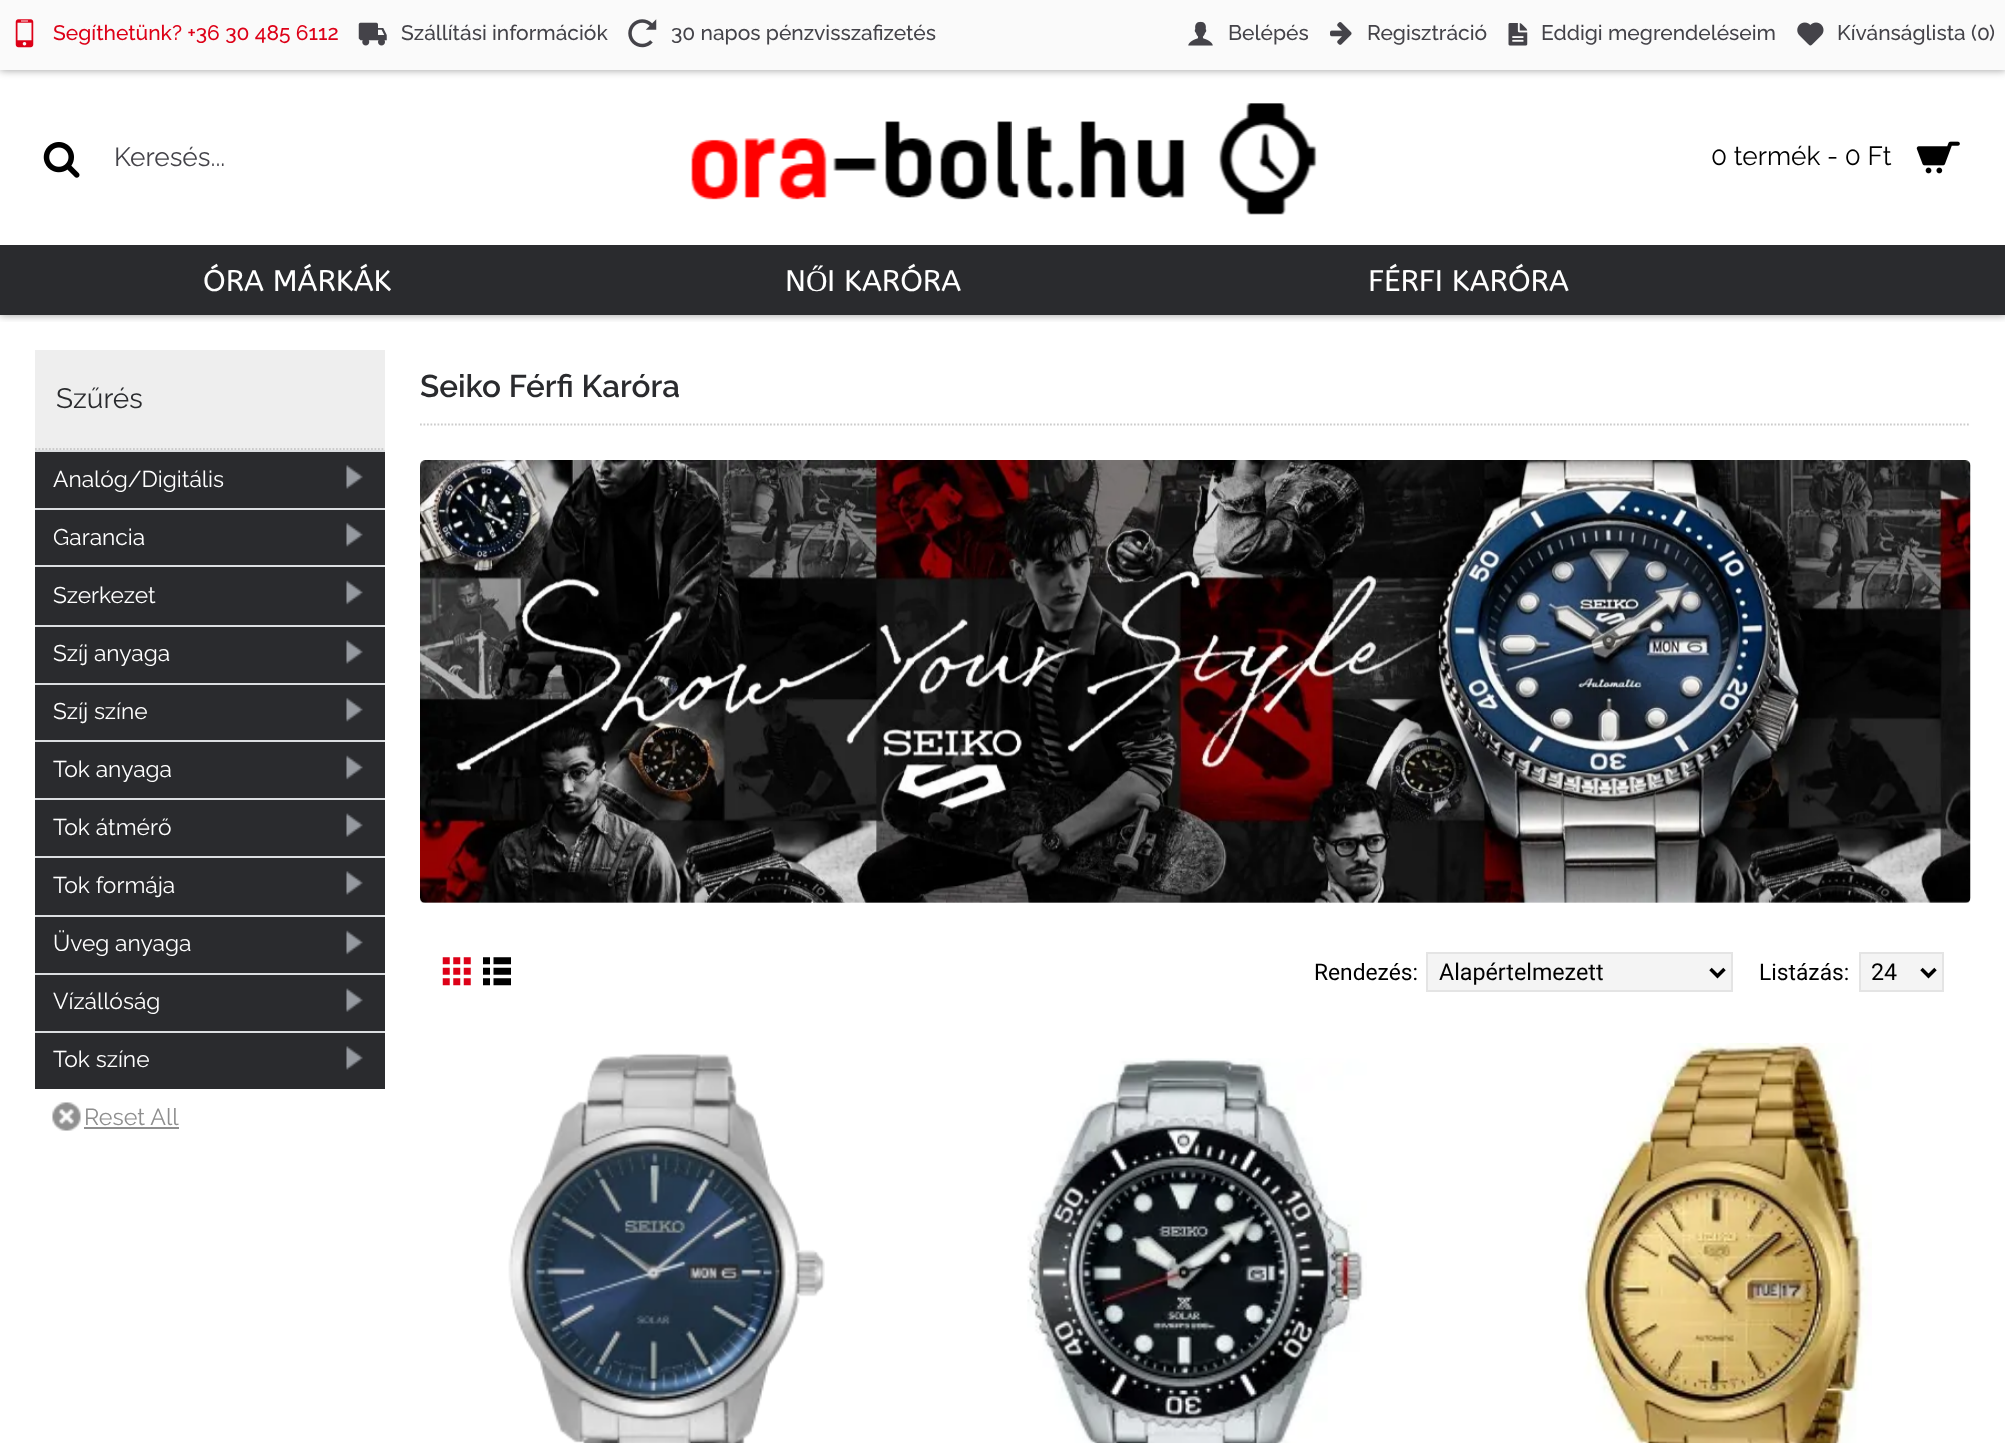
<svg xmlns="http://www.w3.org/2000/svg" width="2005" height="1443">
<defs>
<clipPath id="clip1"><rect x="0" y="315" width="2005" height="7"/></clipPath>
</defs>
<rect width="100%" height="100%" fill="#fff"/>
<g clip-path="url(#clip1)">
<rect width="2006" height="315" fill="#00000066" filter="blur(4.5px)"/>
</g>
<rect width="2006" height="70" fill="#00000066" filter="blur(4.5px)"/>
<rect width="2005" height="70" fill="#fafafa"/>
<image x="15" y="19" width="19" height="29" href="media/1.png"/>
<text x="53" y="40" style="font-family:Raleway;font-size:21px;font-weight:500;fill:#dd0017">Segíthetünk? +36 30 485 6112</text>
<image x="358" y="22" width="29" height="24" href="media/2.png"/>
<text x="401" y="40" style="font-family:Raleway;font-size:21px;font-weight:500;fill:#444349">Szállítási információk</text>
<image x="628" y="19" width="29" height="29" href="media/3.png"/>
<text x="671" y="40" style="font-family:Raleway;font-size:21px;font-weight:500;fill:#444349">30 napos pénzvisszafizetés</text>
<image x="1188" y="21" width="25" height="25" href="media/4.png"/>
<text x="1228" y="40" style="font-family:Raleway;font-size:21px;font-weight:500;fill:#444349">Belépés</text>
<image x="1330" y="22" width="22" height="23" href="media/5.png"/>
<text x="1367" y="40" style="font-family:Raleway;font-size:21px;font-weight:500;fill:#444349">Regisztráció</text>
<image x="1508" y="23" width="20" height="23" href="media/6.png"/>
<text x="1541" y="40" style="font-family:Raleway;font-size:21px;font-weight:500;fill:#444349">Eddigi megrendeléseim</text>
<image x="1797" y="22" width="27" height="24" href="media/7.png"/>
<text x="1837" y="40" style="font-family:Raleway;font-size:21px;font-weight:500;fill:#444349">Kívánságlista (</text>
<text x="1977" y="40" style="font-family:Raleway;font-size:21px;font-weight:500;fill:#444349">0</text>
<text x="1989" y="40" style="font-family:Raleway;font-size:21px;font-weight:500;fill:#444349">)</text>
<image x="43" y="142" width="37" height="36" href="media/8.png"/>
<text x="114" y="166" style="font-family:Raleway;font-size:26.25px;fill:#444349">Keresés...</text>
<image x="691" y="103" width="626" height="112" href="media/9.png"/>
<text x="1711" y="165" style="font-family:Raleway;font-size:26.25px;fill:#000">0 termék - 0 Ft</text>
<image x="1916" y="141" width="44" height="33" href="media/10.png"/>
<rect y="245" width="2005" height="70" fill="#2a2b2e"/>
<text x="203" y="291" style="font-family:ABeeZee;font-size:29.75px;fill:#fff">ÓRA MÁRKÁK</text>
<text x="785" y="291" style="font-family:ABeeZee;font-size:29.75px;fill:#fff">N</text>
<text x="806" y="291" style="font-family:Liberation Serif;font-size:29.75px;fill:#fff">Ő</text>
<text x="827" y="291" style="font-family:ABeeZee;font-size:29.75px;fill:#fff">I KARÓRA</text>
<text x="1368" y="291" style="font-family:ABeeZee;font-size:29.75px;fill:#fff">FÉRFI KARÓRA</text>
<rect x="35" y="350" width="350" height="100" fill="#eee"/>
<path d="M35 449h350" fill="none" stroke="#ccc" stroke-width="1.8" stroke-dasharray="1.75 1.75"/>
<text x="56" y="408" style="font-family:Raleway;font-size:28px;fill:#2a2b2e">Szűrés</text>
<rect x="35" y="452" width="350" height="56" fill="#2a2b2e"/>
<rect x="35" y="450" width="350" height="2" fill="#dbdee1"/>
<text x="53" y="487" style="font-family:Raleway;font-size:22.75px;fill:#fff">Analóg/Digitális</text>
<image x="346" y="465" width="17" height="24" href="media/11.png"/>
<rect x="35" y="510" width="350" height="55" fill="#2a2b2e"/>
<rect x="35" y="508" width="350" height="2" fill="#dbdee1"/>
<text x="53" y="545" style="font-family:Raleway;font-size:22.75px;fill:#fff">Garancia</text>
<image x="346" y="522" width="17" height="25" href="media/12.png"/>
<rect x="35" y="567" width="350" height="58" fill="#2a2b2e"/>
<rect x="35" y="565" width="350" height="2" fill="#dbdee1"/>
<text x="53" y="603" style="font-family:Raleway;font-size:22.75px;fill:#fff">Szerkezet</text>
<image x="346" y="580" width="17" height="25" href="media/13.png"/>
<rect x="35" y="627" width="350" height="56" fill="#2a2b2e"/>
<rect x="35" y="625" width="350" height="2" fill="#dbdee1"/>
<text x="53" y="661" style="font-family:Raleway;font-size:22.75px;fill:#fff">Szíj anyaga</text>
<image x="346" y="640" width="17" height="24" href="media/11.png"/>
<rect x="35" y="685" width="350" height="55" fill="#2a2b2e"/>
<rect x="35" y="683" width="350" height="2" fill="#dbdee1"/>
<text x="53" y="719" style="font-family:Raleway;font-size:22.75px;fill:#fff">Szíj színe</text>
<image x="346" y="697" width="17" height="25" href="media/12.png"/>
<rect x="35" y="742" width="350" height="56" fill="#2a2b2e"/>
<rect x="35" y="740" width="350" height="2" fill="#dbdee1"/>
<text x="53" y="777" style="font-family:Raleway;font-size:22.75px;fill:#fff">Tok anyaga</text>
<image x="346" y="755" width="17" height="25" href="media/13.png"/>
<rect x="35" y="800" width="350" height="56" fill="#2a2b2e"/>
<rect x="35" y="798" width="350" height="2" fill="#dbdee1"/>
<text x="53" y="835" style="font-family:Raleway;font-size:22.75px;fill:#fff">Tok átmérő</text>
<image x="346" y="813" width="17" height="24" href="media/14.png"/>
<rect x="35" y="858" width="350" height="57" fill="#2a2b2e"/>
<rect x="35" y="856" width="350" height="2" fill="#dbdee1"/>
<text x="53" y="893" style="font-family:Raleway;font-size:22.75px;fill:#fff">Tok formája</text>
<image x="346" y="871" width="17" height="24" href="media/11.png"/>
<rect x="35" y="917" width="350" height="56" fill="#2a2b2e"/>
<rect x="35" y="915" width="350" height="2" fill="#dbdee1"/>
<text x="53" y="951" style="font-family:Raleway;font-size:22.75px;fill:#fff">Üveg anyaga</text>
<image x="346" y="930" width="17" height="25" href="media/13.png"/>
<rect x="35" y="975" width="350" height="56" fill="#2a2b2e"/>
<rect x="35" y="973" width="350" height="2" fill="#dbdee1"/>
<text x="53" y="1009" style="font-family:Raleway;font-size:22.75px;fill:#fff">Vízállóság</text>
<image x="346" y="988" width="17" height="24" href="media/14.png"/>
<rect x="35" y="1033" width="350" height="56" fill="#2a2b2e"/>
<rect x="35" y="1031" width="350" height="2" fill="#dbdee1"/>
<text x="53" y="1067" style="font-family:Raleway;font-size:22.75px;fill:#fff">Tok színe</text>
<image x="346" y="1046" width="17" height="24" href="media/11.png"/>
<image x="52" y="1102" width="29" height="29" href="media/15.png"/>
<text x="84" y="1125" style="font-family:Raleway;font-size:23.25px;fill:#8e8e8e">Reset All</text>
<rect x="84" y="1127" width="95" height="2" fill="#8e8e8e"/>
<path d="M420 424.5h1550.5" fill="none" stroke="#ccc" stroke-width="1.8" stroke-dasharray="1.75 1.75"/>
<text x="420" y="397" style="font-family:Raleway;font-size:31.5px;font-weight:600;fill:#2a2b2e">Seiko Férfi Karóra</text>
<image x="420" y="460" width="1551" height="443" href="media/16.png"/>
<image x="442" y="957" width="29" height="29" href="media/17.png"/>
<image x="483" y="957" width="28" height="29" href="media/18.png"/>
<text x="1314" y="980" style="font-family:Roboto;font-size:22.75px;fill:#000">Rendezés:</text>
<rect x="1427" y="953" width="305" height="38" fill="#f4f4f4" stroke="#e4e4e4" stroke-width="2"/>
<path d="M1710.5 969l7 7l7-7" fill="none" stroke="#000" stroke-width="3.5"/>
<text x="1439" y="980" style="font-family:Roboto;font-size:23.25px;fill:#000">Alapértelmezett</text>
<text x="1759" y="980" style="font-family:Roboto;font-size:22.75px;fill:#000">Listázás:</text>
<rect x="1860" y="953" width="83" height="38" fill="#f4f4f4" stroke="#e4e4e4" stroke-width="2"/>
<path d="M1921.5 969l7 7l7-7" fill="none" stroke="#000" stroke-width="3.5"/>
<text x="1871" y="980" style="font-family:Roboto;font-size:23.25px;fill:#000">24</text>
<image x="508" y="1053" width="317" height="390" href="media/19.png"/>
<image x="1027" y="1058" width="340" height="385" href="media/20.png"/>
<image x="1578" y="1043" width="294" height="400" href="media/21.png"/>
</svg>
